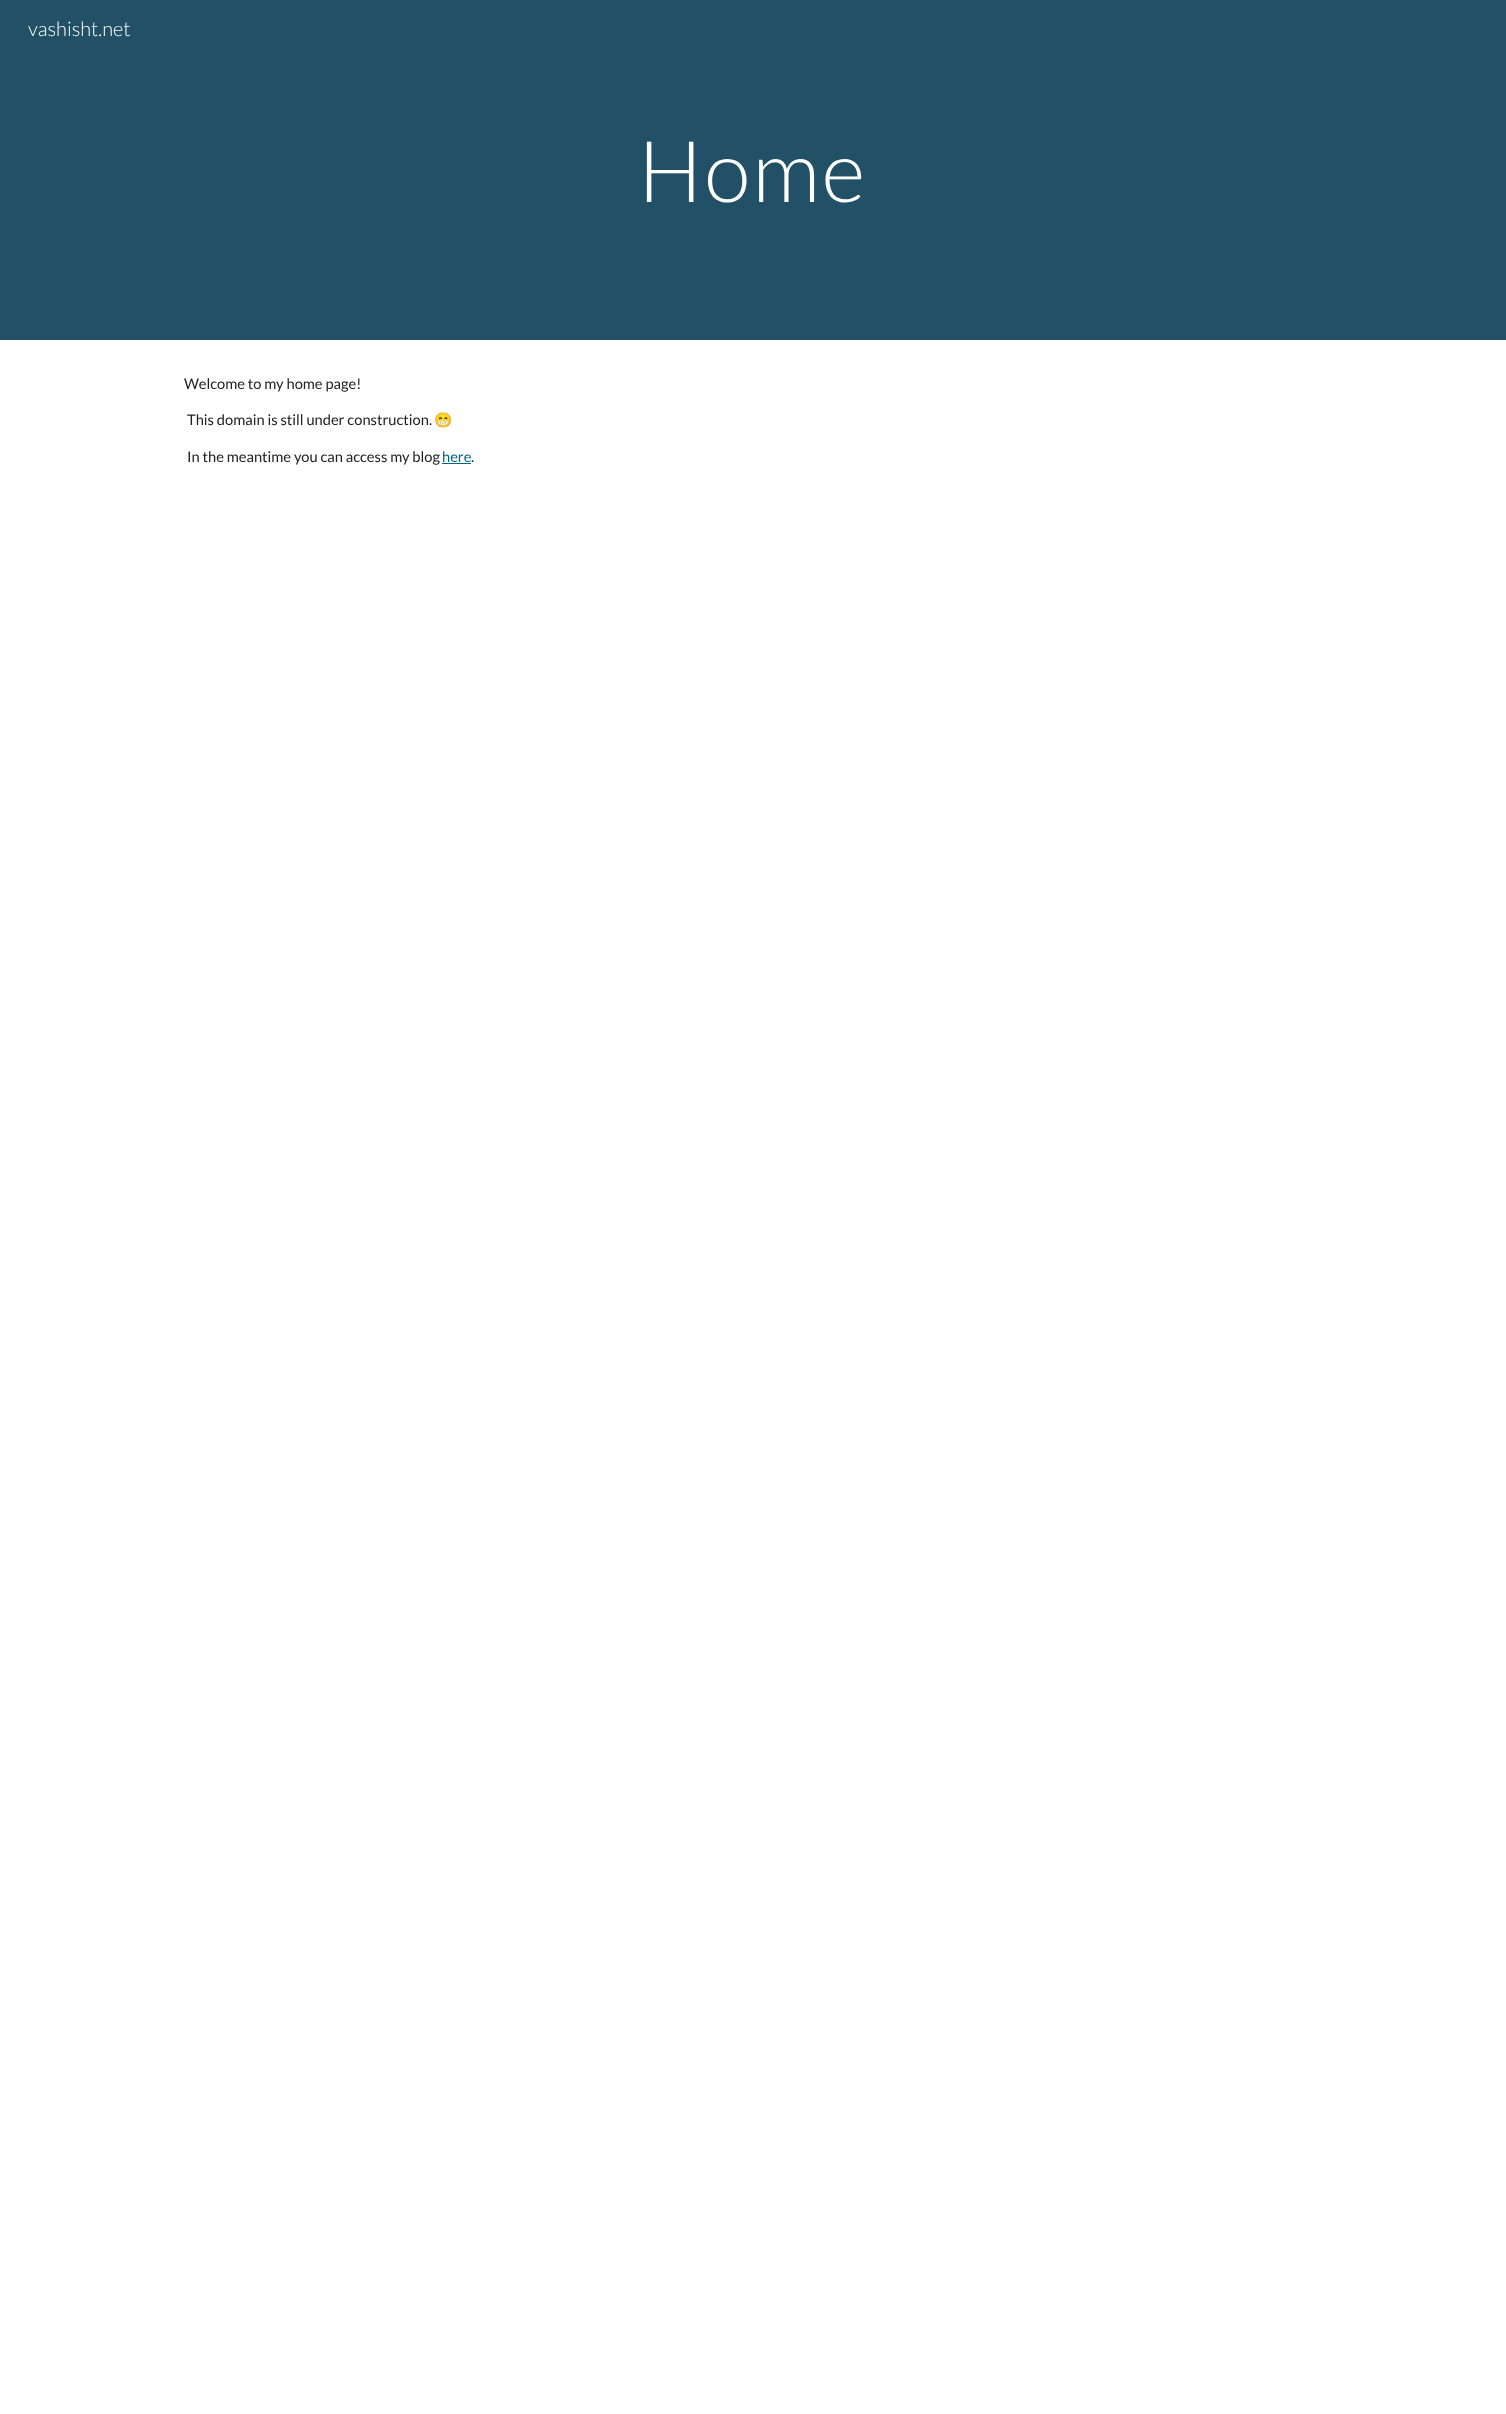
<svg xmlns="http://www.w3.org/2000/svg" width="1506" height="2414">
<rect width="100%" height="100%" fill="#fff"/>
<rect width="1506" height="340" fill="#225066"/>
<text x="28" y="36" style="font-family:Lato;font-size:20px;font-weight:300;fill:#fff">vashisht.net</text>
<text x="638" y="202" style="font-family:Lato;font-size:85px;font-weight:300;letter-spacing:2px;fill:#fff">Home</text>
<text x="184" y="389" style="font-family:Lato;font-size:14.7px;fill:#212121">Welcome to my home page!</text>
<text x="187" y="425" style="font-family:Lato;font-size:14.7px;fill:#212121">This domain is still under construction.</text>
<text x="434" y="425" style="font-family:Noto Color Emoji;font-size:14.7px;fill:#212121">😁</text>
<text x="187" y="462" style="font-family:Lato;font-size:14.7px;fill:#212121">In the meantime you can access my blog</text>
<text x="442" y="462" style="font-family:Lato;font-size:14.7px;fill:#006580">here</text>
<rect x="442" y="463" width="29" height="1" fill="#006580"/>
<text x="471" y="462" style="font-family:Lato;font-size:14.7px;fill:#212121">.</text>
</svg>
